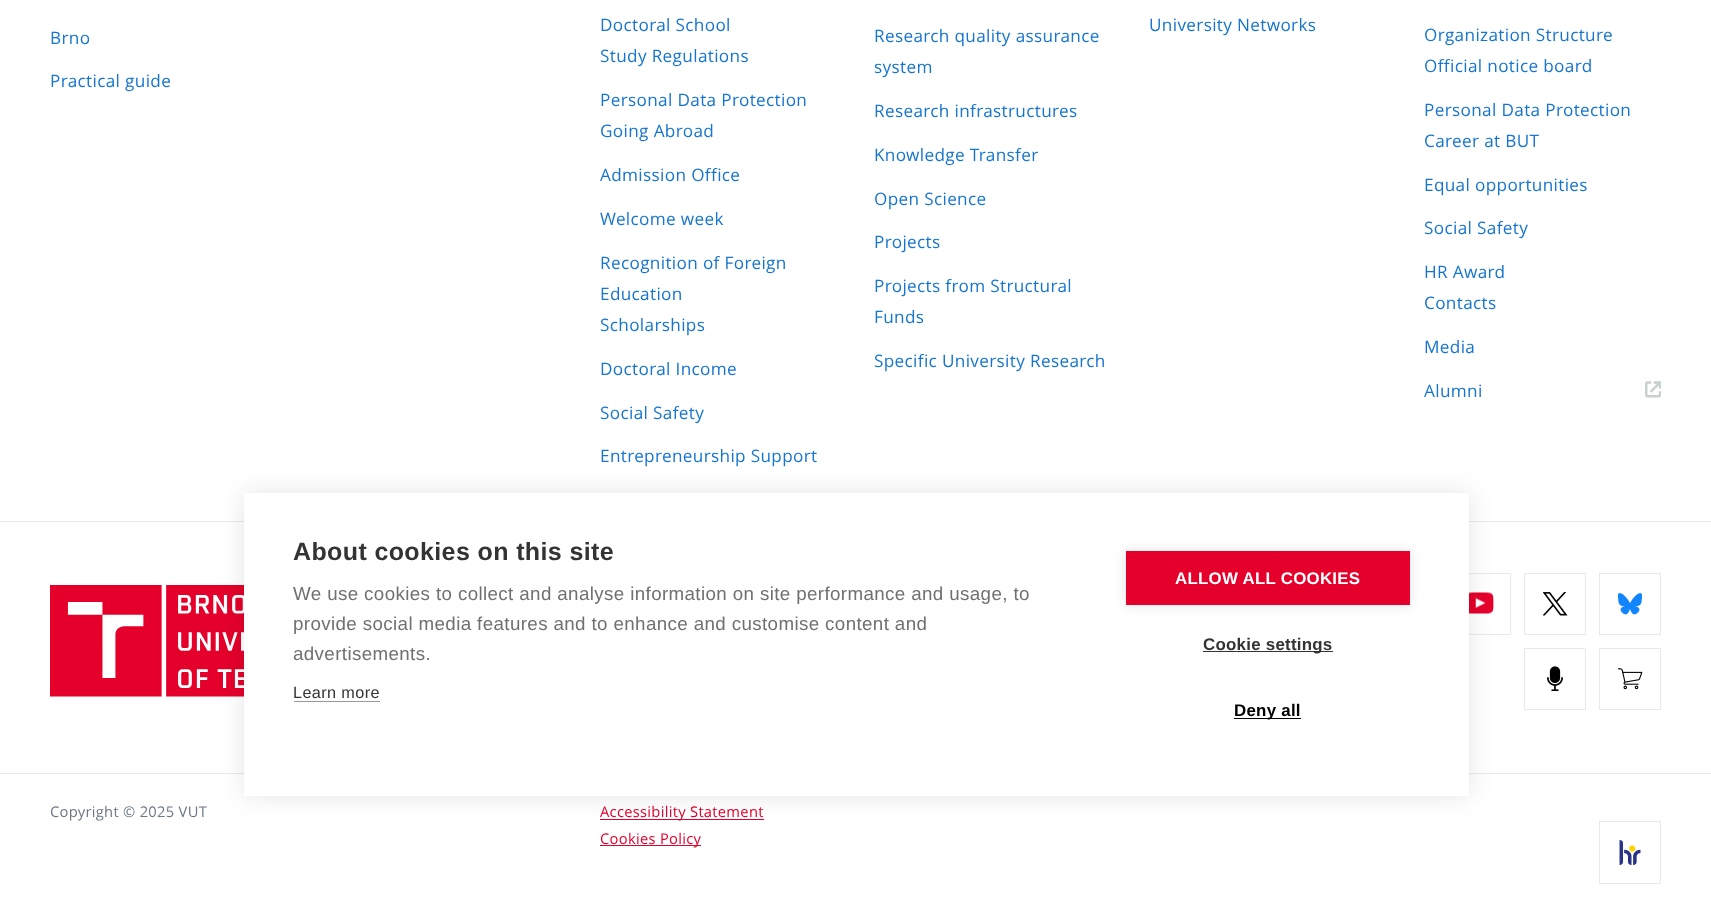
<svg xmlns="http://www.w3.org/2000/svg" width="1711" height="908">
<rect width="100%" height="100%" fill="#fff"/>
<text x="50" y="44" style="font-family:Open Sans;font-size:17.5px;letter-spacing:0.35px;fill:#1675cf">Brno</text>
<text x="50" y="87" style="font-family:Open Sans;font-size:17.5px;letter-spacing:0.35px;fill:#1675cf">Practical guide</text>
<text x="600" y="31" style="font-family:Open Sans;font-size:17.5px;letter-spacing:0.35px;fill:#1675cf">Doctoral School</text>
<text x="600" y="62" style="font-family:Open Sans;font-size:17.5px;letter-spacing:0.35px;fill:#1675cf">Study Regulations</text>
<text x="600" y="106" style="font-family:Open Sans;font-size:17.5px;letter-spacing:0.35px;fill:#1675cf">Personal Data Protection</text>
<text x="600" y="137" style="font-family:Open Sans;font-size:17.5px;letter-spacing:0.35px;fill:#1675cf">Going Abroad</text>
<text x="600" y="181" style="font-family:Open Sans;font-size:17.5px;letter-spacing:0.35px;fill:#1675cf">Admission Office</text>
<text x="600" y="225" style="font-family:Open Sans;font-size:17.5px;letter-spacing:0.35px;fill:#1675cf">Welcome week</text>
<text x="600" y="269" style="font-family:Open Sans;font-size:17.5px;letter-spacing:0.35px;fill:#1675cf">Recognition of Foreign</text>
<text x="600" y="300" style="font-family:Open Sans;font-size:17.5px;letter-spacing:0.35px;fill:#1675cf">Education</text>
<text x="600" y="331" style="font-family:Open Sans;font-size:17.5px;letter-spacing:0.35px;fill:#1675cf">Scholarships</text>
<text x="600" y="375" style="font-family:Open Sans;font-size:17.5px;letter-spacing:0.35px;fill:#1675cf">Doctoral Income</text>
<text x="600" y="419" style="font-family:Open Sans;font-size:17.5px;letter-spacing:0.35px;fill:#1675cf">Social Safety</text>
<text x="600" y="462" style="font-family:Open Sans;font-size:17.5px;letter-spacing:0.35px;fill:#1675cf">Entrepreneurship Support</text>
<text x="874" y="42" style="font-family:Open Sans;font-size:17.5px;letter-spacing:0.35px;fill:#1675cf">Research quality assurance</text>
<text x="874" y="73" style="font-family:Open Sans;font-size:17.5px;letter-spacing:0.35px;fill:#1675cf">system</text>
<text x="874" y="117" style="font-family:Open Sans;font-size:17.5px;letter-spacing:0.35px;fill:#1675cf">Research infrastructures</text>
<text x="874" y="161" style="font-family:Open Sans;font-size:17.5px;letter-spacing:0.35px;fill:#1675cf">Knowledge Transfer</text>
<text x="874" y="205" style="font-family:Open Sans;font-size:17.5px;letter-spacing:0.35px;fill:#1675cf">Open Science</text>
<text x="874" y="248" style="font-family:Open Sans;font-size:17.5px;letter-spacing:0.35px;fill:#1675cf">Projects</text>
<text x="874" y="292" style="font-family:Open Sans;font-size:17.5px;letter-spacing:0.35px;fill:#1675cf">Projects from Structural</text>
<text x="874" y="323" style="font-family:Open Sans;font-size:17.5px;letter-spacing:0.35px;fill:#1675cf">Funds</text>
<text x="874" y="367" style="font-family:Open Sans;font-size:17.5px;letter-spacing:0.35px;fill:#1675cf">Specific University Research</text>
<text x="1149" y="31" style="font-family:Open Sans;font-size:17.5px;letter-spacing:0.35px;fill:#1675cf">University Networks</text>
<text x="1424" y="41" style="font-family:Open Sans;font-size:17.5px;letter-spacing:0.35px;fill:#1675cf">Organization Structure</text>
<text x="1424" y="72" style="font-family:Open Sans;font-size:17.5px;letter-spacing:0.35px;fill:#1675cf">Official notice board</text>
<text x="1424" y="116" style="font-family:Open Sans;font-size:17.5px;letter-spacing:0.35px;fill:#1675cf">Personal Data Protection</text>
<text x="1424" y="147" style="font-family:Open Sans;font-size:17.5px;letter-spacing:0.35px;fill:#1675cf">Career at BUT</text>
<text x="1424" y="191" style="font-family:Open Sans;font-size:17.5px;letter-spacing:0.35px;fill:#1675cf">Equal opportunities</text>
<text x="1424" y="234" style="font-family:Open Sans;font-size:17.5px;letter-spacing:0.35px;fill:#1675cf">Social Safety</text>
<text x="1424" y="278" style="font-family:Open Sans;font-size:17.5px;letter-spacing:0.35px;fill:#1675cf">HR Award</text>
<text x="1424" y="309" style="font-family:Open Sans;font-size:17.5px;letter-spacing:0.35px;fill:#1675cf">Contacts</text>
<text x="1424" y="353" style="font-family:Open Sans;font-size:17.5px;letter-spacing:0.35px;fill:#1675cf">Media</text>
<image x="1645" y="381" width="16" height="17" href="media/1.png"/>
<text x="1424" y="397" style="font-family:Open Sans;font-size:17.5px;letter-spacing:0.35px;fill:#1675cf">Alumni</text>
<rect y="521" width="1711" height="1" fill="#e8eaea"/>
<image x="50" y="585" width="194" height="112" href="media/2.png"/>
<rect x="1449.5" y="573.5" width="61" height="61" fill="none" stroke="#e8eaea"/>
<image x="1469" y="592" width="25" height="22" href="media/3.png"/>
<rect x="1524.5" y="573.5" width="61" height="61" fill="none" stroke="#e8eaea"/>
<image x="1543" y="592" width="25" height="24" href="media/4.png"/>
<rect x="1599.5" y="573.5" width="61" height="61" fill="none" stroke="#e8eaea"/>
<image x="1618" y="593" width="25" height="22" href="media/5.png"/>
<rect x="1524.5" y="648.5" width="61" height="61" fill="none" stroke="#e8eaea"/>
<image x="1547" y="666" width="16" height="25" href="media/6.png"/>
<rect x="1599.5" y="648.5" width="61" height="61" fill="none" stroke="#e8eaea"/>
<image x="1618" y="668" width="25" height="22" href="media/7.png"/>
<rect y="773" width="1711" height="1" fill="#e8eaea"/>
<text x="50" y="817" style="font-family:Open Sans;font-size:15px;letter-spacing:0.3px;fill:#6c7784">Copyright © 2025 VUT</text>
<rect x="600" y="819" width="164" height="1" fill="#e4002b"/>
<text x="600" y="817" style="font-family:Open Sans;font-size:15px;letter-spacing:0.3px;fill:#e4002b">Accessibility Statement</text>
<rect x="600" y="845" width="101" height="1" fill="#e4002b"/>
<text x="600" y="844" style="font-family:Open Sans;font-size:15px;letter-spacing:0.3px;fill:#e4002b">Cookies Policy</text>
<rect x="1599.5" y="821.5" width="61" height="62" fill="none" stroke="#e8eaea"/>
<image x="1619" y="840" width="22" height="25" href="media/8.png"/>
<rect x="244" y="493" width="1225" height="303" fill="#0000001a" filter="blur(12.5px)"/>
<rect x="244" y="493" width="1225" height="303" fill="#fff"/>
<text x="293" y="560" style="font-family:Liberation Sans;font-size:25px;font-weight:bold;letter-spacing:0.38px;fill:#333">About cookies on this site</text>
<text x="293" y="600" style="font-family:Liberation Sans;font-size:18.75px;letter-spacing:0.38px;fill:#707070">We use cookies to collect and analyse information on site performance and usage, to</text>
<text x="293" y="630" style="font-family:Liberation Sans;font-size:18.75px;letter-spacing:0.38px;fill:#707070">provide social media features and to enhance and customise content and</text>
<text x="293" y="660" style="font-family:Liberation Sans;font-size:18.75px;letter-spacing:0.38px;fill:#707070">advertisements.</text>
<text x="293" y="698" style="font-family:Liberation Sans;font-size:16.25px;letter-spacing:0.38px;fill:#333">Learn more</text>
<rect x="294" y="701" width="86" height="1" fill="#999"/>
<rect x="1126" y="551" width="284" height="54" fill="#0000001f" filter="blur(6px)"/>
<rect x="1126" y="551" width="284" height="54" fill="#e4002b"/>
<text x="1175" y="584" style="font-family:Liberation Sans;font-size:16.9px;font-weight:bold;letter-spacing:0.25px;fill:#fff">ALLOW ALL COOKIES</text>
<rect x="1203" y="651" width="130" height="1" fill="#333"/>
<text x="1203" y="650" style="font-family:Liberation Sans;font-size:16.9px;font-weight:bold;letter-spacing:0.25px;fill:#333">Cookie settings</text>
<rect x="1234" y="718" width="67" height="1" fill="#000"/>
<text x="1234" y="716" style="font-family:Liberation Sans;font-size:16.9px;font-weight:bold;letter-spacing:0.25px;fill:#000">Deny all</text>
</svg>
